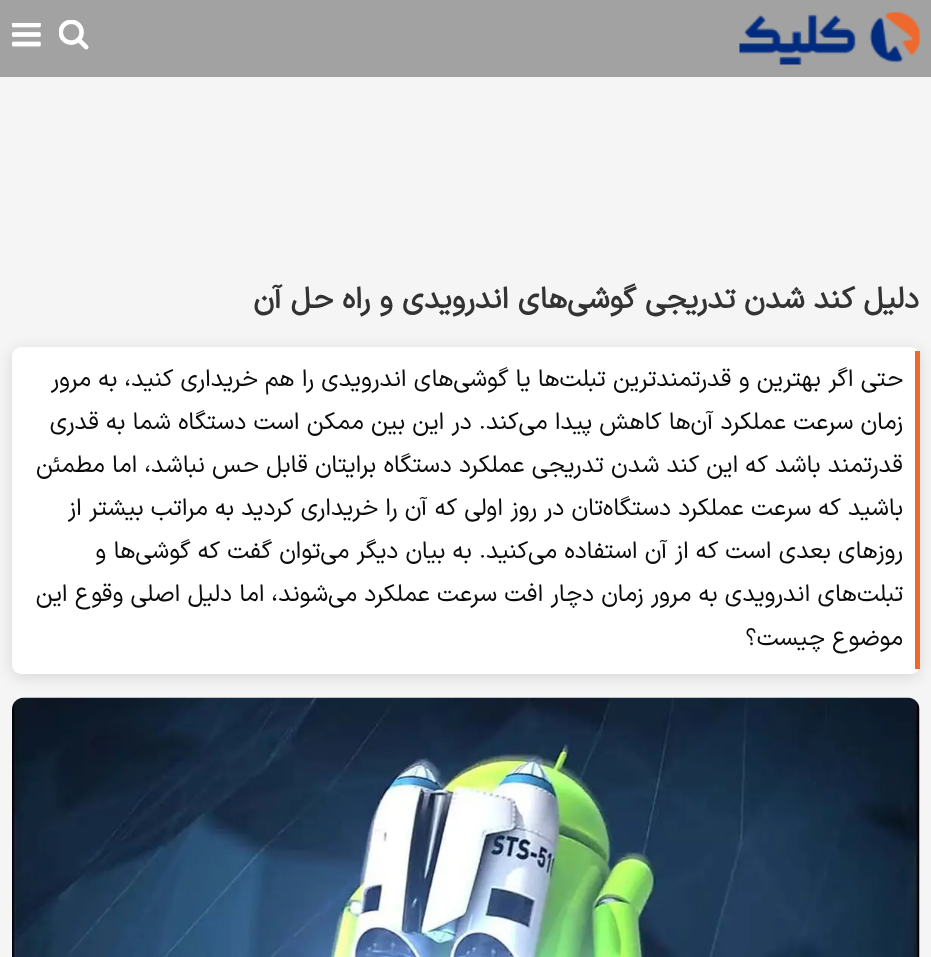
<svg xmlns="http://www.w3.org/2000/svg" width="931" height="957">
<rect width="100%" height="100%" fill="#f5f5f5"/>
<rect width="931" height="77" fill="#a2a2a2"/>
<image x="739" y="12" width="181" height="53" href="media/1.png"/>
<image x="59" y="20" width="30" height="30" href="media/2.png"/>
<image x="12" y="23" width="29" height="24" href="media/3.png"/>
<text x="919" y="308" style="font-family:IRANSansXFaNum;font-size:30px;font-weight:bold;direction:rtl;fill:#333">دلیل کند شدن تدریجی گوشی‌های اندرویدی و راه حل آن</text>
<rect x="12" y="350" width="908" height="327" rx="9" fill="#0000001f" filter="blur(7.5px)"/>
<rect x="12" y="347" width="908" height="327" rx="9" fill="#fff"/>
<rect x="915" y="351" width="5" height="318" fill="#ee692d"/>
<text x="903" y="386" style="font-family:IRANSansXFaNum;font-size:24px;direction:rtl;fill:#0b0b0b">حتی اگر بهترین و قدرتمندترین تبلت‌ها یا گوشی‌های اندرویدی را هم خریداری کنید، به مرور</text>
<text x="903" y="429" style="font-family:IRANSansXFaNum;font-size:24px;direction:rtl;fill:#0b0b0b">زمان سرعت عملکرد آن‌ها کاهش پیدا می‌کند. در این بین ممکن است دستگاه شما به قدری</text>
<text x="903" y="472" style="font-family:IRANSansXFaNum;font-size:24px;direction:rtl;fill:#0b0b0b">قدرتمند باشد که این کند شدن تدریجی عملکرد دستگاه برایتان قابل حس نباشد، اما مطمئن</text>
<text x="903" y="515" style="font-family:IRANSansXFaNum;font-size:24px;direction:rtl;fill:#0b0b0b">باشید که سرعت عملکرد دستگاه‌تان در روز اولی که آن را خریداری کردید به مراتب بیشتر از</text>
<text x="903" y="558" style="font-family:IRANSansXFaNum;font-size:24px;direction:rtl;fill:#0b0b0b">روزهای بعدی است که از آن استفاده می‌کنید. به بیان دیگر می‌توان گفت که گوشی‌ها و</text>
<text x="903" y="601" style="font-family:IRANSansXFaNum;font-size:24px;direction:rtl;fill:#0b0b0b">تبلت‌های اندرویدی به مرور زمان دچار افت سرعت عملکرد می‌شوند، اما دلیل اصلی وقوع این</text>
<text x="903" y="645" style="font-family:IRANSansXFaNum;font-size:24px;direction:rtl;fill:#0b0b0b">موضوع چیست؟</text>
<image x="12" y="697" width="908" height="260" href="media/4.png"/>
</svg>
